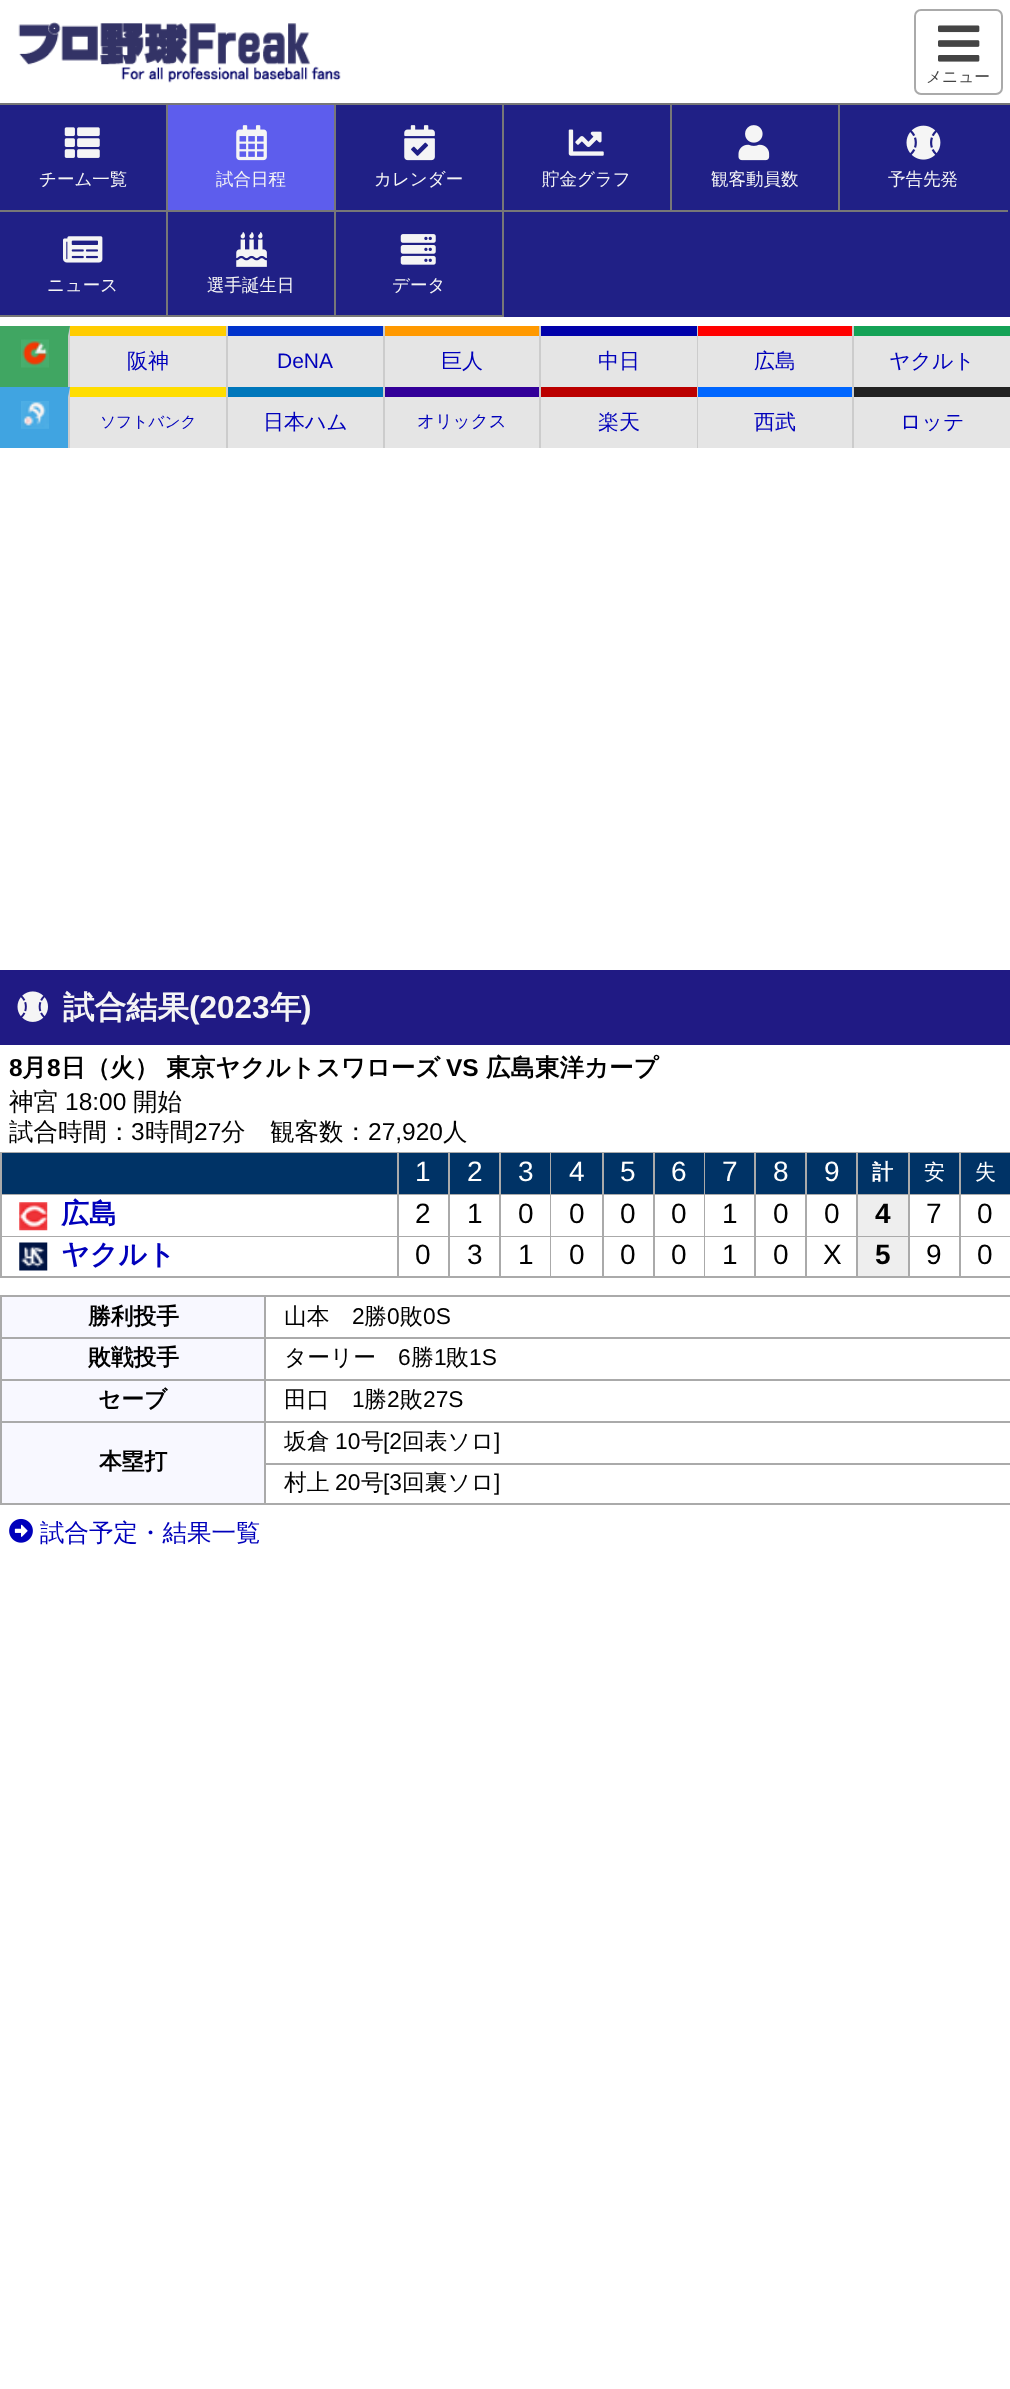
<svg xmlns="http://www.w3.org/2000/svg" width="1010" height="2389">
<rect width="100%" height="100%" fill="#fff"/>
<image x="18" y="22" width="323" height="61" href="media/1.png"/>
<rect x="915" y="10" width="87" height="84" rx="6" fill="none" stroke="#aaa" stroke-width="2"/>
<image x="938" y="25" width="42" height="37" href="media/2.png"/>
<text x="926" y="82" style="font-family:WenQuanYi Zen Hei;font-size:15.75px;font-weight:500;fill:#444">メニュー</text>
<rect y="105" width="1010" height="212" fill="#202086"/>
<rect y="103" width="1010" height="2" fill="#777"/>
<rect x="166" y="105" width="2" height="212" fill="#777"/>
<rect y="210" width="168" height="2" fill="#777"/>
<image x="64" y="127" width="36" height="31" href="media/3.png"/>
<text x="39" y="185" style="font-family:WenQuanYi Zen Hei;font-size:17.5px;font-weight:500;fill:#f5f5f5">チーム一覧</text>
<rect x="334" y="105" width="2" height="212" fill="#777"/>
<rect x="168" y="210" width="168" height="2" fill="#777"/>
<rect x="168" y="105" width="166" height="105" fill="#5d5ded"/>
<image x="236" y="125" width="31" height="36" href="media/4.png"/>
<text x="216" y="185" style="font-family:WenQuanYi Zen Hei;font-size:17.5px;font-weight:500;fill:#f5f5f5">試合日程</text>
<rect x="502" y="105" width="2" height="212" fill="#777"/>
<rect x="336" y="210" width="168" height="2" fill="#777"/>
<image x="404" y="125" width="31" height="36" href="media/5.png"/>
<text x="374" y="185" style="font-family:WenQuanYi Zen Hei;font-size:17.5px;font-weight:500;fill:#f5f5f5">カレンダー</text>
<rect x="670" y="105" width="2" height="107" fill="#777"/>
<rect x="504" y="210" width="168" height="2" fill="#777"/>
<image x="568" y="129" width="36" height="27" href="media/6.png"/>
<text x="542" y="185" style="font-family:WenQuanYi Zen Hei;font-size:17.5px;font-weight:500;fill:#f5f5f5">貯金グラフ</text>
<rect x="838" y="105" width="2" height="107" fill="#777"/>
<rect x="672" y="210" width="336" height="2" fill="#777"/>
<image x="738" y="125" width="32" height="36" href="media/7.png"/>
<text x="711" y="185" style="font-family:WenQuanYi Zen Hei;font-size:17.5px;font-weight:500;fill:#f5f5f5">観客動員数</text>
<image x="906" y="125" width="35" height="35" href="media/8.png"/>
<text x="888" y="185" style="font-family:WenQuanYi Zen Hei;font-size:17.5px;font-weight:500;fill:#f5f5f5">予告先発</text>
<rect y="315" width="504" height="2" fill="#777"/>
<image x="63" y="236" width="40" height="27" href="media/9.png"/>
<text x="47" y="291" style="font-family:WenQuanYi Zen Hei;font-size:17.5px;font-weight:500;fill:#f5f5f5">ニュース</text>
<image x="236" y="232" width="31" height="35" href="media/10.png"/>
<text x="207" y="291" style="font-family:WenQuanYi Zen Hei;font-size:17.5px;font-weight:500;fill:#f5f5f5">選手誕生日</text>
<image x="400" y="234" width="36" height="31" href="media/11.png"/>
<text x="392" y="291" style="font-family:WenQuanYi Zen Hei;font-size:17.5px;font-weight:500;fill:#f5f5f5">データ</text>
<rect y="326" width="70" height="61" fill="#40a662"/>
<image x="21" y="339" width="28" height="29" href="media/12.png"/>
<path d="M70 326v61h-2v-51z" fill="#ccc"/>
<rect x="70" y="336" width="156" height="51" fill="#e5e5e5"/>
<rect x="226" y="326" width="2" height="122" fill="#ccc"/>
<rect x="70" y="326" width="156" height="10" fill="#fc0"/>
<text x="127" y="368" style="font-family:WenQuanYi Zen Hei;font-size:21px;font-weight:500;fill:#00b">阪神</text>
<rect x="228" y="336" width="155" height="51" fill="#e5e5e5"/>
<rect x="383" y="326" width="2" height="122" fill="#ccc"/>
<rect x="228" y="326" width="155" height="10" fill="#03c"/>
<text x="277" y="368" style="font-family:Liberation Sans;font-size:21px;fill:#00b">DeNA</text>
<rect x="385" y="336" width="154" height="51" fill="#e5e5e5"/>
<rect x="539" y="326" width="2" height="122" fill="#ccc"/>
<rect x="385" y="326" width="154" height="10" fill="#f90"/>
<text x="441" y="368" style="font-family:WenQuanYi Zen Hei;font-size:21px;font-weight:500;fill:#00b">巨人</text>
<rect x="541" y="336" width="156" height="51" fill="#e5e5e5"/>
<rect x="697" y="326" width="1" height="122" fill="#ccc"/>
<rect x="541" y="326" width="156" height="10" fill="#00a"/>
<text x="598" y="368" style="font-family:WenQuanYi Zen Hei;font-size:21px;font-weight:500;fill:#00b">中日</text>
<rect x="698" y="336" width="154" height="51" fill="#e5e5e5"/>
<rect x="852" y="326" width="2" height="122" fill="#ccc"/>
<rect x="698" y="326" width="154" height="10" fill="#f00"/>
<text x="754" y="368" style="font-family:WenQuanYi Zen Hei;font-size:21px;font-weight:500;fill:#00b">広島</text>
<rect x="854" y="336" width="156" height="51" fill="#e5e5e5"/>
<rect x="854" y="326" width="156" height="10" fill="#14a256"/>
<text x="889" y="368" style="font-family:WenQuanYi Zen Hei;font-size:21px;font-weight:500;fill:#00b">ヤクルト</text>
<rect y="387" width="70" height="61" fill="#40a4e1"/>
<image x="21" y="401" width="28" height="28" href="media/13.png"/>
<path d="M70 387v61h-2v-51z" fill="#ccc"/>
<rect x="70" y="397" width="156" height="51" fill="#e5e5e5"/>
<rect x="70" y="387" width="156" height="10" fill="#fd0"/>
<text x="100" y="427" style="font-family:WenQuanYi Zen Hei;font-size:15.75px;font-weight:500;fill:#00b">ソフトバンク</text>
<rect x="228" y="397" width="155" height="51" fill="#e5e5e5"/>
<rect x="228" y="387" width="155" height="10" fill="#07b"/>
<text x="263" y="429" style="font-family:WenQuanYi Zen Hei;font-size:21px;font-weight:500;fill:#00b">日本ハム</text>
<rect x="385" y="397" width="154" height="51" fill="#e5e5e5"/>
<rect x="385" y="387" width="154" height="10" fill="#309"/>
<text x="417" y="427" style="font-family:WenQuanYi Zen Hei;font-size:17.5px;font-weight:500;fill:#00b">オリックス</text>
<rect x="541" y="397" width="156" height="51" fill="#e5e5e5"/>
<rect x="541" y="387" width="156" height="10" fill="#b00"/>
<text x="598" y="429" style="font-family:WenQuanYi Zen Hei;font-size:21px;font-weight:500;fill:#00b">楽天</text>
<rect x="698" y="397" width="154" height="51" fill="#e5e5e5"/>
<rect x="698" y="387" width="154" height="10" fill="#06f"/>
<text x="754" y="429" style="font-family:WenQuanYi Zen Hei;font-size:21px;font-weight:500;fill:#00b">西武</text>
<rect x="854" y="397" width="156" height="51" fill="#e5e5e5"/>
<rect x="854" y="387" width="156" height="10" fill="#222"/>
<text x="900" y="429" style="font-family:WenQuanYi Zen Hei;font-size:21px;font-weight:500;fill:#00b">ロッテ</text>
<rect y="970" width="1010" height="75" fill="#201a84"/>
<image x="17" y="991" width="31" height="31" href="media/14.png"/>
<text x="63" y="1018" style="font-family:WenQuanYi Zen Hei;font-size:31.5px;font-weight:bold;fill:#f5f5f5">試合結果</text>
<text x="189" y="1018" style="font-family:Liberation Sans;font-size:31.5px;font-weight:bold;fill:#f5f5f5">(2023</text>
<text x="270" y="1018" style="font-family:WenQuanYi Zen Hei;font-size:31.5px;font-weight:bold;fill:#f5f5f5">年</text>
<text x="301" y="1018" style="font-family:Liberation Sans;font-size:31.5px;font-weight:bold;fill:#f5f5f5">)</text>
<text x="9" y="1076" style="font-family:Liberation Sans;font-size:24.5px;font-weight:bold;fill:#000">8</text>
<text x="22" y="1076" style="font-family:WenQuanYi Zen Hei;font-size:24.5px;font-weight:bold;fill:#000">月</text>
<text x="47" y="1076" style="font-family:Liberation Sans;font-size:24.5px;font-weight:bold;fill:#000">8</text>
<text x="61" y="1076" style="font-family:WenQuanYi Zen Hei;font-size:24.5px;font-weight:bold;fill:#000">日（火） 東京ヤクルトスワローズ</text>
<text x="446" y="1076" style="font-family:Liberation Sans;font-size:24.5px;font-weight:bold;fill:#000">VS</text>
<text x="486" y="1076" style="font-family:WenQuanYi Zen Hei;font-size:24.5px;font-weight:bold;fill:#000">広島東洋カープ</text>
<text x="9" y="1110" style="font-family:WenQuanYi Zen Hei;font-size:24.5px;font-weight:500;fill:#000">神宮</text>
<text x="65" y="1110" style="font-family:Liberation Sans;font-size:24.5px;fill:#000">18:00</text>
<text x="133" y="1110" style="font-family:WenQuanYi Zen Hei;font-size:24.5px;font-weight:500;fill:#000">開始</text>
<text x="9" y="1140" style="font-family:WenQuanYi Zen Hei;font-size:24.5px;font-weight:500;fill:#000">試合時間：</text>
<text x="131" y="1140" style="font-family:Liberation Sans;font-size:24.5px;fill:#000">3</text>
<text x="145" y="1140" style="font-family:WenQuanYi Zen Hei;font-size:24.5px;font-weight:500;fill:#000">時間</text>
<text x="194" y="1140" style="font-family:Liberation Sans;font-size:24.5px;fill:#000">27</text>
<text x="221" y="1140" style="font-family:WenQuanYi Zen Hei;font-size:24.5px;font-weight:500;fill:#000">分　観客数：</text>
<text x="368" y="1140" style="font-family:Liberation Sans;font-size:24.5px;fill:#000">27,920</text>
<text x="443" y="1140" style="font-family:WenQuanYi Zen Hei;font-size:24.5px;font-weight:500;fill:#000">人</text>
<rect y="1152" width="1010" height="126" fill="#aaa"/>
<rect x="2" y="1153" width="395" height="41" fill="#036"/>
<rect x="399" y="1153" width="49" height="41" fill="#036"/>
<text x="415" y="1181" style="font-family:Liberation Sans;font-size:28px;fill:#fff">1</text>
<rect x="450" y="1153" width="49" height="41" fill="#036"/>
<text x="467" y="1181" style="font-family:Liberation Sans;font-size:28px;fill:#fff">2</text>
<rect x="501" y="1153" width="49" height="41" fill="#036"/>
<text x="518" y="1181" style="font-family:Liberation Sans;font-size:28px;fill:#fff">3</text>
<rect x="551" y="1153" width="51" height="41" fill="#036"/>
<text x="569" y="1181" style="font-family:Liberation Sans;font-size:28px;fill:#fff">4</text>
<rect x="604" y="1153" width="49" height="41" fill="#036"/>
<text x="620" y="1181" style="font-family:Liberation Sans;font-size:28px;fill:#fff">5</text>
<rect x="655" y="1153" width="49" height="41" fill="#036"/>
<text x="671" y="1181" style="font-family:Liberation Sans;font-size:28px;fill:#fff">6</text>
<rect x="705" y="1153" width="49" height="41" fill="#036"/>
<text x="722" y="1181" style="font-family:Liberation Sans;font-size:28px;fill:#fff">7</text>
<rect x="756" y="1153" width="49" height="41" fill="#036"/>
<text x="773" y="1181" style="font-family:Liberation Sans;font-size:28px;fill:#fff">8</text>
<rect x="807" y="1153" width="49" height="41" fill="#036"/>
<text x="824" y="1181" style="font-family:Liberation Sans;font-size:28px;fill:#fff">9</text>
<rect x="858" y="1153" width="50" height="41" fill="#036"/>
<text x="872" y="1179" style="font-family:WenQuanYi Zen Hei;font-size:21px;font-weight:bold;fill:#fff">計</text>
<rect x="910" y="1153" width="49" height="41" fill="#036"/>
<text x="924" y="1179" style="font-family:WenQuanYi Zen Hei;font-size:21px;font-weight:500;fill:#fff">安</text>
<rect x="961" y="1153" width="49" height="41" fill="#036"/>
<text x="975" y="1179" style="font-family:WenQuanYi Zen Hei;font-size:21px;font-weight:500;fill:#fff">失</text>
<rect x="2" y="1195" width="395" height="41" fill="#fff"/>
<image x="19" y="1202" width="29" height="29" href="media/15.png"/>
<text x="61" y="1223" style="font-family:WenQuanYi Zen Hei;font-size:28px;font-weight:bold;fill:#00b">広島</text>
<rect x="399" y="1195" width="49" height="41" fill="#fff"/>
<text x="415" y="1223" style="font-family:Liberation Sans;font-size:28px;fill:#000">2</text>
<rect x="450" y="1195" width="49" height="41" fill="#fff"/>
<text x="467" y="1223" style="font-family:Liberation Sans;font-size:28px;fill:#000">1</text>
<rect x="501" y="1195" width="49" height="41" fill="#fff"/>
<text x="518" y="1223" style="font-family:Liberation Sans;font-size:28px;fill:#000">0</text>
<rect x="551" y="1195" width="51" height="41" fill="#fff"/>
<text x="569" y="1223" style="font-family:Liberation Sans;font-size:28px;fill:#000">0</text>
<rect x="604" y="1195" width="49" height="41" fill="#fff"/>
<text x="620" y="1223" style="font-family:Liberation Sans;font-size:28px;fill:#000">0</text>
<rect x="655" y="1195" width="49" height="41" fill="#fff"/>
<text x="671" y="1223" style="font-family:Liberation Sans;font-size:28px;fill:#000">0</text>
<rect x="705" y="1195" width="49" height="41" fill="#fff"/>
<text x="722" y="1223" style="font-family:Liberation Sans;font-size:28px;fill:#000">1</text>
<rect x="756" y="1195" width="49" height="41" fill="#fff"/>
<text x="773" y="1223" style="font-family:Liberation Sans;font-size:28px;fill:#000">0</text>
<rect x="807" y="1195" width="49" height="41" fill="#fff"/>
<text x="824" y="1223" style="font-family:Liberation Sans;font-size:28px;fill:#000">0</text>
<rect x="858" y="1195" width="50" height="41" fill="#eee"/>
<text x="875" y="1223" style="font-family:Liberation Sans;font-size:28px;font-weight:bold;fill:#000">4</text>
<rect x="910" y="1195" width="49" height="41" fill="#fff"/>
<text x="926" y="1223" style="font-family:Liberation Sans;font-size:28px;fill:#000">7</text>
<rect x="961" y="1195" width="49" height="41" fill="#fff"/>
<text x="977" y="1223" style="font-family:Liberation Sans;font-size:28px;fill:#000">0</text>
<rect x="2" y="1237" width="395" height="39" fill="#fff"/>
<image x="19" y="1242" width="29" height="29" href="media/16.png"/>
<text x="61" y="1264" style="font-family:WenQuanYi Zen Hei;font-size:28px;font-weight:bold;fill:#00b">ヤクルト</text>
<rect x="399" y="1237" width="49" height="39" fill="#fff"/>
<text x="415" y="1264" style="font-family:Liberation Sans;font-size:28px;fill:#000">0</text>
<rect x="450" y="1237" width="49" height="39" fill="#fff"/>
<text x="467" y="1264" style="font-family:Liberation Sans;font-size:28px;fill:#000">3</text>
<rect x="501" y="1237" width="49" height="39" fill="#fff"/>
<text x="518" y="1264" style="font-family:Liberation Sans;font-size:28px;fill:#000">1</text>
<rect x="551" y="1237" width="51" height="39" fill="#fff"/>
<text x="569" y="1264" style="font-family:Liberation Sans;font-size:28px;fill:#000">0</text>
<rect x="604" y="1237" width="49" height="39" fill="#fff"/>
<text x="620" y="1264" style="font-family:Liberation Sans;font-size:28px;fill:#000">0</text>
<rect x="655" y="1237" width="49" height="39" fill="#fff"/>
<text x="671" y="1264" style="font-family:Liberation Sans;font-size:28px;fill:#000">0</text>
<rect x="705" y="1237" width="49" height="39" fill="#fff"/>
<text x="722" y="1264" style="font-family:Liberation Sans;font-size:28px;fill:#000">1</text>
<rect x="756" y="1237" width="49" height="39" fill="#fff"/>
<text x="773" y="1264" style="font-family:Liberation Sans;font-size:28px;fill:#000">0</text>
<rect x="807" y="1237" width="49" height="39" fill="#fff"/>
<text x="823" y="1264" style="font-family:Liberation Sans;font-size:28px;fill:#000">X</text>
<rect x="858" y="1237" width="50" height="39" fill="#eee"/>
<text x="875" y="1264" style="font-family:Liberation Sans;font-size:28px;font-weight:bold;fill:#000">5</text>
<rect x="910" y="1237" width="49" height="39" fill="#fff"/>
<text x="926" y="1264" style="font-family:Liberation Sans;font-size:28px;fill:#000">9</text>
<rect x="961" y="1237" width="49" height="39" fill="#fff"/>
<text x="977" y="1264" style="font-family:Liberation Sans;font-size:28px;fill:#000">0</text>
<rect y="1295" width="1010" height="210" fill="#aaa"/>
<rect x="2" y="1297" width="262" height="40" fill="#f8f8ff"/>
<text x="88" y="1324" style="font-family:WenQuanYi Zen Hei;font-size:22.75px;font-weight:bold;fill:#000">勝利投手</text>
<rect x="266" y="1297" width="744" height="40" fill="#fff"/>
<text x="284" y="1324" style="font-family:WenQuanYi Zen Hei;font-size:22.75px;font-weight:500;fill:#000">山本</text>
<text x="352" y="1324" style="font-family:Liberation Sans;font-size:22.75px;fill:#000">2</text>
<text x="364" y="1324" style="font-family:WenQuanYi Zen Hei;font-size:22.75px;font-weight:500;fill:#000">勝</text>
<text x="387" y="1324" style="font-family:Liberation Sans;font-size:22.75px;fill:#000">0</text>
<text x="400" y="1324" style="font-family:WenQuanYi Zen Hei;font-size:22.75px;font-weight:500;fill:#000">敗</text>
<text x="423" y="1324" style="font-family:Liberation Sans;font-size:22.75px;fill:#000">0S</text>
<rect x="2" y="1339" width="262" height="40" fill="#f8f8ff"/>
<text x="88" y="1365" style="font-family:WenQuanYi Zen Hei;font-size:22.75px;font-weight:bold;fill:#000">敗戦投手</text>
<rect x="266" y="1339" width="744" height="40" fill="#fff"/>
<text x="284" y="1365" style="font-family:WenQuanYi Zen Hei;font-size:22.75px;font-weight:500;fill:#000">ターリー</text>
<text x="398" y="1365" style="font-family:Liberation Sans;font-size:22.75px;fill:#000">6</text>
<text x="411" y="1365" style="font-family:WenQuanYi Zen Hei;font-size:22.75px;font-weight:500;fill:#000">勝</text>
<text x="434" y="1365" style="font-family:Liberation Sans;font-size:22.75px;fill:#000">1</text>
<text x="446" y="1365" style="font-family:WenQuanYi Zen Hei;font-size:22.75px;font-weight:500;fill:#000">敗</text>
<text x="469" y="1365" style="font-family:Liberation Sans;font-size:22.75px;fill:#000">1S</text>
<rect x="2" y="1381" width="262" height="40" fill="#f8f8ff"/>
<text x="98" y="1407" style="font-family:WenQuanYi Zen Hei;font-size:22.75px;font-weight:bold;fill:#000">セーブ</text>
<rect x="266" y="1381" width="744" height="40" fill="#fff"/>
<text x="284" y="1407" style="font-family:WenQuanYi Zen Hei;font-size:22.75px;font-weight:500;fill:#000">田口</text>
<text x="352" y="1407" style="font-family:Liberation Sans;font-size:22.75px;fill:#000">1</text>
<text x="364" y="1407" style="font-family:WenQuanYi Zen Hei;font-size:22.75px;font-weight:500;fill:#000">勝</text>
<text x="387" y="1407" style="font-family:Liberation Sans;font-size:22.75px;fill:#000">2</text>
<text x="400" y="1407" style="font-family:WenQuanYi Zen Hei;font-size:22.75px;font-weight:500;fill:#000">敗</text>
<text x="423" y="1407" style="font-family:Liberation Sans;font-size:22.75px;fill:#000">27S</text>
<rect x="266" y="1423" width="744" height="40" fill="#fff"/>
<text x="284" y="1449" style="font-family:WenQuanYi Zen Hei;font-size:22.75px;font-weight:500;fill:#000">坂倉</text>
<text x="335" y="1449" style="font-family:Liberation Sans;font-size:22.75px;fill:#000">10</text>
<text x="361" y="1449" style="font-family:WenQuanYi Zen Hei;font-size:22.75px;font-weight:500;fill:#000">号</text>
<text x="383" y="1449" style="font-family:Liberation Sans;font-size:22.75px;fill:#000">[2</text>
<text x="402" y="1449" style="font-family:WenQuanYi Zen Hei;font-size:22.75px;font-weight:500;fill:#000">回表ソロ</text>
<text x="494" y="1449" style="font-family:Liberation Sans;font-size:22.75px;fill:#000">]</text>
<rect x="2" y="1423" width="262" height="80" fill="#f8f8ff"/>
<text x="99" y="1469" style="font-family:WenQuanYi Zen Hei;font-size:22.75px;font-weight:bold;fill:#000">本塁打</text>
<rect x="266" y="1465" width="744" height="38" fill="#fff"/>
<text x="284" y="1490" style="font-family:WenQuanYi Zen Hei;font-size:22.75px;font-weight:500;fill:#000">村上</text>
<text x="335" y="1490" style="font-family:Liberation Sans;font-size:22.75px;fill:#000">20</text>
<text x="361" y="1490" style="font-family:WenQuanYi Zen Hei;font-size:22.75px;font-weight:500;fill:#000">号</text>
<text x="383" y="1490" style="font-family:Liberation Sans;font-size:22.75px;fill:#000">[3</text>
<text x="402" y="1490" style="font-family:WenQuanYi Zen Hei;font-size:22.75px;font-weight:500;fill:#000">回裏ソロ</text>
<text x="494" y="1490" style="font-family:Liberation Sans;font-size:22.75px;fill:#000">]</text>
<image x="9" y="1518" width="24" height="25" href="media/17.png"/>
<text x="40" y="1541" style="font-family:WenQuanYi Zen Hei;font-size:24.5px;font-weight:500;fill:#00b">試合予定・結果一覧</text>
</svg>
